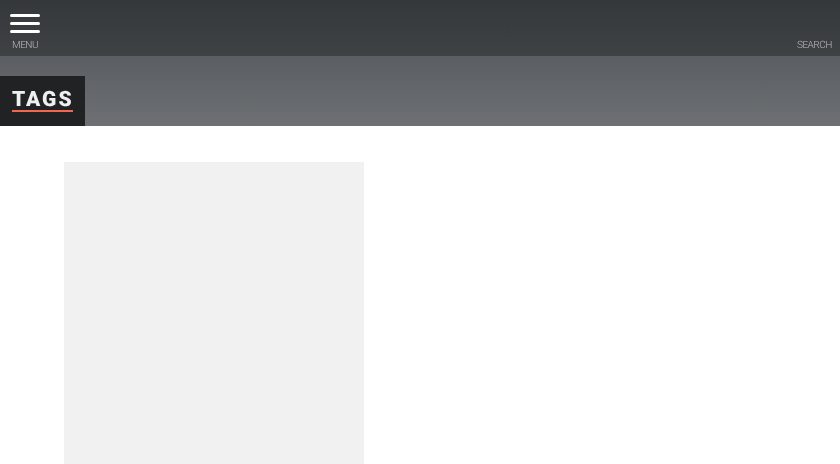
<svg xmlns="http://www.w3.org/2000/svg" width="840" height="464">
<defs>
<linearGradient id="g1" gradientUnits="userSpaceOnUse" x1="420" y1="0" x2="420" y2="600"><stop offset="0" stop-color="#4c5054"/><stop offset="1" stop-color="#e8e9eb"/></linearGradient>
<linearGradient id="g2" gradientUnits="userSpaceOnUse" x1="420" y1="0" x2="420" y2="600"><stop offset="0" stop-color="#35383b"/><stop offset="1" stop-color="#a2a3a5"/></linearGradient>
</defs>
<rect width="100%" height="100%" fill="#fff"/>
<rect y="56" width="840" height="70" fill="url(#g1)"/>
<rect width="840" height="56" fill="url(#g2)"/>
<rect x="10" y="22" width="30" height="3" rx="1.5" fill="#fff"/>
<rect x="10" y="14" width="30" height="3" rx="1.5" fill="#fff"/>
<rect x="10" y="30" width="30" height="3" rx="1.5" fill="#fff"/>
<text x="12" y="48" style="font-family:Roboto;font-size:10px;font-weight:300;letter-spacing:-0.5px;fill:#bbb">MENU</text>
<text x="797" y="48" style="font-family:Roboto;font-size:10px;font-weight:300;letter-spacing:-0.5px;fill:#bbb">SEARCH</text>
<rect y="76" width="85" height="50" fill="#202224"/>
<rect x="12" y="110" width="61" height="2" fill="#f16651"/>
<text x="12" y="106" style="font-family:Roboto;font-size:21px;font-weight:900;letter-spacing:2px;fill:#efeff2">TAGS</text>
<rect x="64" y="162" width="300" height="302" fill="#f1f1f1"/>
</svg>
